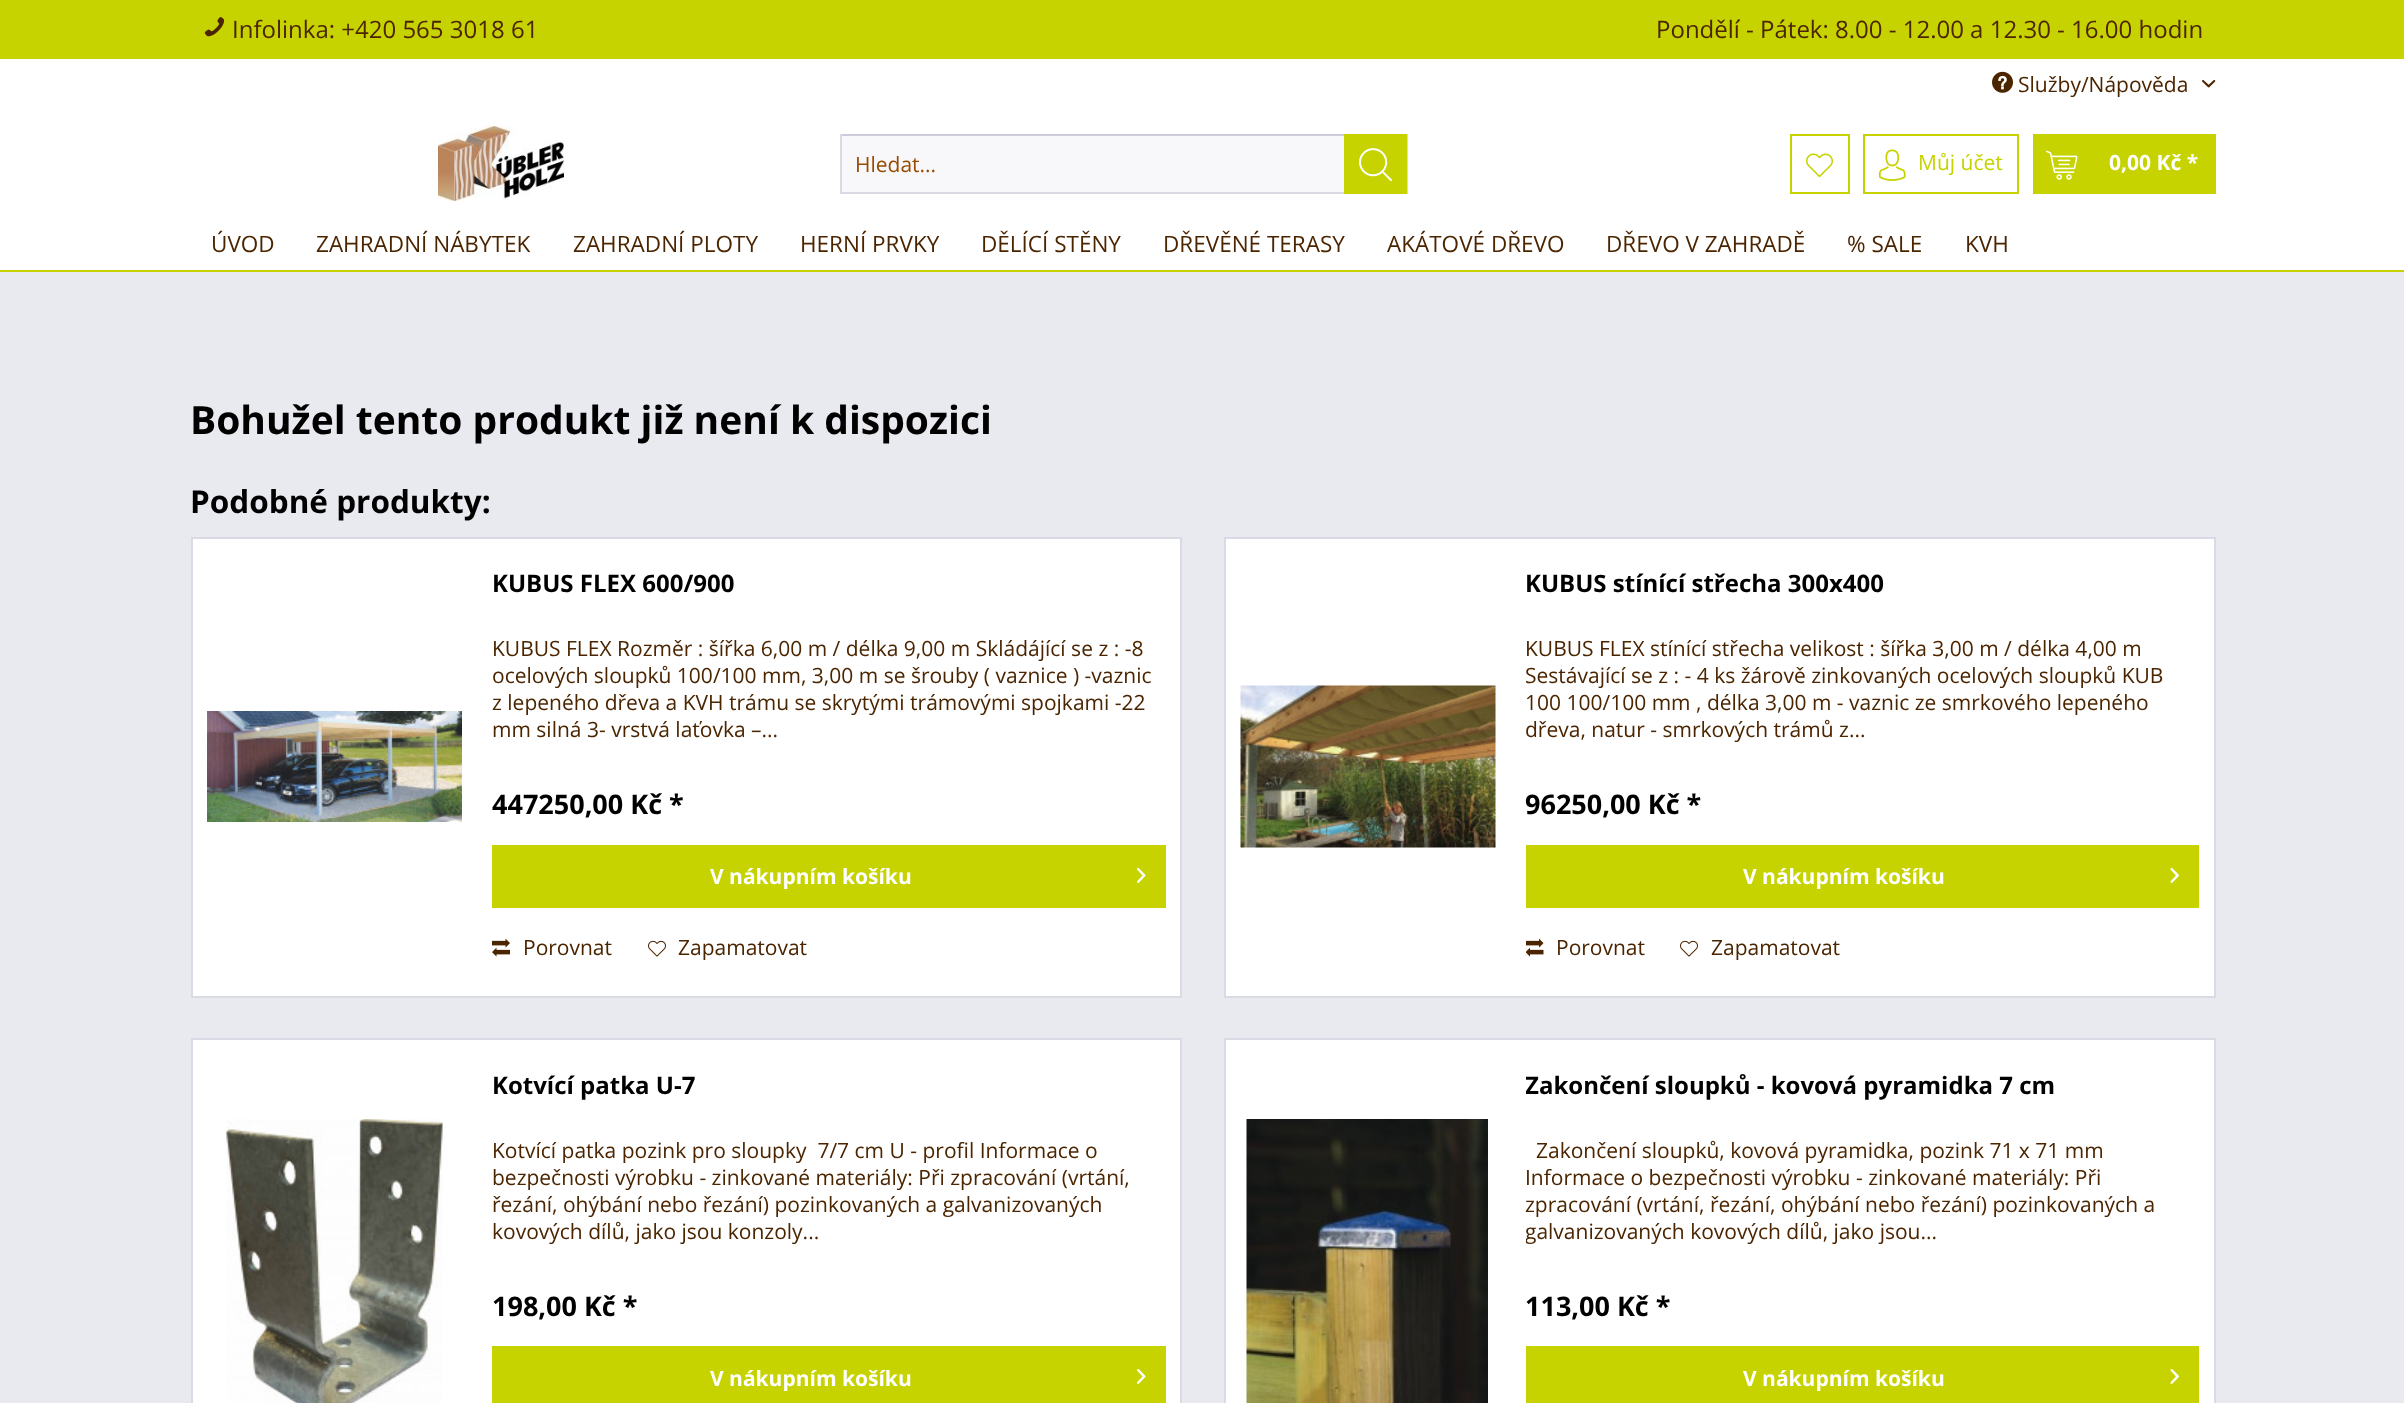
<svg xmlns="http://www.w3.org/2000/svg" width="2404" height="1403">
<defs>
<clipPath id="clip1"><rect x="1526" y="1070" width="673" height="60"/></clipPath>
<clipPath id="clip2"><rect x="1526" y="1137" width="673" height="108"/></clipPath>
</defs>
<rect width="100%" height="100%" fill="#e9e9f0"/>
<rect y="59" width="2404" height="211" fill="#fff"/>
<rect width="2404" height="59" fill="#c6d300"/>
<image x="204" y="17" width="21" height="20" href="media/1.png"/>
<text x="232" y="38" style="font-family:Open Sans;font-size:24px;fill:#4b2500">Infolinka: +420 565 3018 61</text>
<text x="1656" y="38" style="font-family:Open Sans;font-size:24px;fill:#4b2500">Pondělí - Pátek: 8.00 - 12.00 a 12.30 - 16.00 hodin</text>
<image x="1992" y="71" width="21" height="22" href="media/2.png"/>
<text x="2018" y="92" style="font-family:Open Sans;font-size:21px;fill:#4b2500">Služby/Nápověda</text>
<image x="2202" y="80" width="14" height="8" href="media/3.png"/>
<image x="438" y="126" width="126" height="75" href="media/4.png"/>
<rect x="842" y="136" width="502" height="56" fill="#f8f8fa"/>
<rect x="840" y="134" width="504" height="2" fill="#cbcbdb"/>
<rect x="1407" y="134" width="1" height="60" fill="#dadae5"/>
<rect x="840" y="192" width="504" height="2" fill="#dadae5"/>
<rect x="840" y="134" width="2" height="60" fill="#dadae5"/>
<text x="855" y="172" style="font-family:Open Sans;font-size:21px;fill:#984b00">Hledat...</text>
<rect x="1344" y="134" width="63" height="60" fill="#c6d300"/>
<image x="1359" y="148" width="33" height="34" href="media/5.png"/>
<rect x="1791" y="135" width="58" height="58" fill="none" stroke="#c6d300" stroke-width="2"/>
<image x="1806" y="153" width="27" height="25" href="media/6.png"/>
<rect x="1864" y="135" width="154" height="58" fill="none" stroke="#c6d300" stroke-width="2"/>
<image x="1878" y="149" width="28" height="32" href="media/7.png"/>
<text x="1918" y="170" style="font-family:Open Sans;font-size:21px;fill:#c6d300">Můj účet</text>
<rect x="2033" y="134" width="183" height="60" fill="#c6d300"/>
<image x="2046" y="150" width="32" height="30" href="media/8.png"/>
<text x="2109" y="170" style="font-family:Open Sans;font-size:21px;font-weight:bold;fill:#fff">0,00 Kč *</text>
<rect y="270" width="2404" height="2" fill="#c6d300"/>
<text x="211" y="252" style="font-family:Open Sans;font-size:22.5px;fill:#4b2500">ÚVOD</text>
<text x="316" y="252" style="font-family:Open Sans;font-size:22.5px;fill:#4b2500">ZAHRADNÍ NÁBYTEK</text>
<text x="573" y="252" style="font-family:Open Sans;font-size:22.5px;fill:#4b2500">ZAHRADNÍ PLOTY</text>
<text x="800" y="252" style="font-family:Open Sans;font-size:22.5px;fill:#4b2500">HERNÍ PRVKY</text>
<text x="981" y="252" style="font-family:Open Sans;font-size:22.5px;fill:#4b2500">DĚLÍCÍ STĚNY</text>
<text x="1163" y="252" style="font-family:Open Sans;font-size:22.5px;fill:#4b2500">DŘEVĚNÉ TERASY</text>
<text x="1387" y="252" style="font-family:Open Sans;font-size:22.5px;fill:#4b2500">AKÁTOVÉ DŘEVO</text>
<text x="1606" y="252" style="font-family:Open Sans;font-size:22.5px;fill:#4b2500">DŘEVO V ZAHRADĚ</text>
<text x="1847" y="252" style="font-family:Open Sans;font-size:22.5px;fill:#4b2500">% SALE</text>
<text x="1965" y="252" style="font-family:Open Sans;font-size:22.5px;fill:#4b2500">KVH</text>
<text x="190" y="434" style="font-family:Open Sans;font-size:39px;font-weight:bold;fill:#000">Bohužel tento produkt již není k dispozici</text>
<text x="190" y="513" style="font-family:Open Sans;font-size:31.5px;font-weight:bold;fill:#000">Podobné produkty:</text>
<rect x="192" y="538" width="989" height="459" fill="#fff" stroke="#dadae5" stroke-width="2"/>
<text x="492" y="592" style="font-family:Open Sans;font-size:24px;font-weight:bold;fill:#000">KUBUS FLEX 600/900</text>
<text x="492" y="656" style="font-family:Open Sans;font-size:21px;fill:#4b2500">KUBUS FLEX Rozměr : šířka 6,00 m / délka 9,00 m Skládájící se z : -8</text>
<text x="492" y="683" style="font-family:Open Sans;font-size:21px;fill:#4b2500">ocelových sloupků 100/100 mm, 3,00 m se šrouby ( vaznice ) -vaznic</text>
<text x="492" y="710" style="font-family:Open Sans;font-size:21px;fill:#4b2500">z lepeného dřeva a KVH trámu se skrytými trámovými spojkami -22</text>
<text x="492" y="737" style="font-family:Open Sans;font-size:21px;fill:#4b2500">mm silná 3- vrstvá laťovka –...</text>
<image x="207" y="711" width="255" height="111" href="media/9.png"/>
<text x="492" y="814" style="font-family:Open Sans;font-size:27px;font-weight:bold;fill:#000">447250,00 Kč *</text>
<rect x="492" y="845" width="674" height="63" fill="#c6d300"/>
<text x="710" y="884" style="font-family:Open Sans;font-size:21px;font-weight:bold;fill:#fff">V nákupním košíku</text>
<image x="1137" y="868" width="9" height="15" href="media/10.png"/>
<image x="492" y="938" width="18" height="19" href="media/11.png"/>
<text x="523" y="955" style="font-family:Open Sans;font-size:21px;fill:#4b2500">Porovnat</text>
<image x="648" y="940" width="18" height="17" href="media/12.png"/>
<text x="678" y="955" style="font-family:Open Sans;font-size:21px;fill:#4b2500">Zapamatovat</text>
<rect x="1225" y="538" width="990" height="459" fill="#fff" stroke="#dadae5" stroke-width="2"/>
<text x="1525" y="592" style="font-family:Open Sans;font-size:24px;font-weight:bold;fill:#000">KUBUS stínící střecha 300x400</text>
<image x="1240" y="685" width="256" height="163" href="media/13.png"/>
<text x="1525" y="656" style="font-family:Open Sans;font-size:21px;fill:#4b2500">KUBUS FLEX stínící střecha velikost : šířka 3,00 m / délka 4,00 m</text>
<text x="1525" y="683" style="font-family:Open Sans;font-size:21px;fill:#4b2500">Sestávající se z : - 4 ks žárově zinkovaných ocelových sloupků KUB</text>
<text x="1525" y="710" style="font-family:Open Sans;font-size:21px;fill:#4b2500">100 100/100 mm , délka 3,00 m - vaznic ze smrkového lepeného</text>
<text x="1525" y="737" style="font-family:Open Sans;font-size:21px;fill:#4b2500">dřeva, natur - smrkových trámů z...</text>
<text x="1525" y="814" style="font-family:Open Sans;font-size:27px;font-weight:bold;fill:#000">96250,00 Kč *</text>
<rect x="1526" y="845" width="673" height="63" fill="#c6d300"/>
<text x="1743" y="884" style="font-family:Open Sans;font-size:21px;font-weight:bold;fill:#fff">V nákupním košíku</text>
<image x="2170" y="868" width="9" height="15" href="media/14.png"/>
<image x="1526" y="938" width="18" height="19" href="media/15.png"/>
<text x="1556" y="955" style="font-family:Open Sans;font-size:21px;fill:#4b2500">Porovnat</text>
<image x="1680" y="940" width="18" height="17" href="media/12.png"/>
<text x="1711" y="955" style="font-family:Open Sans;font-size:21px;fill:#4b2500">Zapamatovat</text>
<rect x="192" y="1039" width="989" height="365" fill="#fff" stroke="#dadae5" stroke-width="2"/>
<text x="492" y="1094" style="font-family:Open Sans;font-size:24px;font-weight:bold;fill:#000">Kotvící patka U-7</text>
<image x="226" y="1119" width="217" height="284" href="media/16.png"/>
<text x="492" y="1158" style="font-family:Open Sans;font-size:21px;fill:#4b2500" xml:space="preserve">Kotvící patka pozink pro sloupky  7/7 cm U - profil Informace o</text>
<text x="492" y="1185" style="font-family:Open Sans;font-size:21px;fill:#4b2500">bezpečnosti výrobku - zinkované materiály: Při zpracování (vrtání,</text>
<text x="492" y="1212" style="font-family:Open Sans;font-size:21px;fill:#4b2500">řezání, ohýbání nebo řezání) pozinkovaných a galvanizovaných</text>
<text x="492" y="1239" style="font-family:Open Sans;font-size:21px;fill:#4b2500">kovových dílů, jako jsou konzoly...</text>
<text x="492" y="1316" style="font-family:Open Sans;font-size:27px;font-weight:bold;fill:#000">198,00 Kč *</text>
<rect x="492" y="1346" width="674" height="57" fill="#c6d300"/>
<text x="710" y="1386" style="font-family:Open Sans;font-size:21px;font-weight:bold;fill:#fff">V nákupním košíku</text>
<image x="1137" y="1369" width="9" height="15" href="media/10.png"/>
<rect x="1225" y="1039" width="990" height="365" fill="#fff" stroke="#dadae5" stroke-width="2"/>
<g clip-path="url(#clip1)">
<text x="1525" y="1094" style="font-family:Open Sans;font-size:24px;font-weight:bold;fill:#000">Zakončení sloupků - kovová pyramidka 7 cm</text>
</g>
<image x="1246" y="1119" width="242" height="284" href="media/17.png"/>
<text x="1536" y="1158" style="font-family:Open Sans;font-size:21px;fill:#4b2500">Zakončení sloupků, kovová pyramidka, pozink 71 x 71 mm</text>
<text x="1525" y="1185" style="font-family:Open Sans;font-size:21px;fill:#4b2500">Informace o bezpečnosti výrobku - zinkované materiály: Při</text>
<text x="1525" y="1212" style="font-family:Open Sans;font-size:21px;fill:#4b2500">zpracování (vrtání, řezání, ohýbání nebo řezání) pozinkovaných a</text>
<g clip-path="url(#clip2)">
<text x="1525" y="1239" style="font-family:Open Sans;font-size:21px;fill:#4b2500">galvanizovaných kovových dílů, jako jsou...</text>
</g>
<text x="1525" y="1316" style="font-family:Open Sans;font-size:27px;font-weight:bold;fill:#000">113,00 Kč *</text>
<rect x="1526" y="1346" width="673" height="57" fill="#c6d300"/>
<text x="1743" y="1386" style="font-family:Open Sans;font-size:21px;font-weight:bold;fill:#fff">V nákupním košíku</text>
<image x="2170" y="1369" width="9" height="15" href="media/14.png"/>
</svg>
